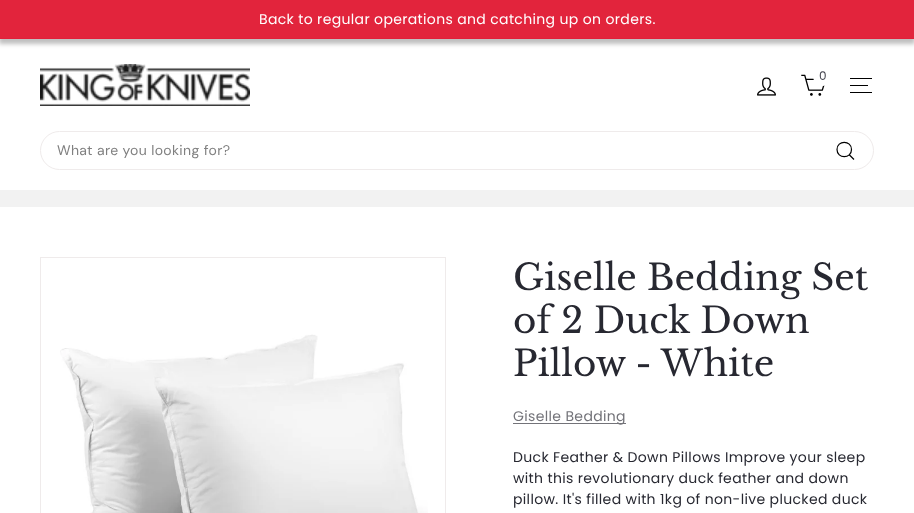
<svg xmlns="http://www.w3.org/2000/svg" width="914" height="513">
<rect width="100%" height="100%" fill="#fff"/>
<rect x="-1" y="3" width="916" height="41" fill="#00000040" filter="blur(2px)"/>
<rect width="914" height="38" fill="#e2243c"/>
<text x="259" y="24" style="font-family:Poppins;font-size:14px;letter-spacing:0.35px;fill:#fff">Back to regular operations and catching up on orders.</text>
<rect y="38" width="914" height="1" fill="#e21f39"/>
<image x="40" y="64" width="210" height="42" href="media/1.png"/>
<image x="801" y="74" width="24" height="22" href="media/2.png"/>
<circle cx="823" cy="76" r="10" fill="#fff"/>
<text x="819" y="80" style="font-family:Poppins;font-size:12px;fill:#42434d">0</text>
<image x="757" y="77" width="19" height="19" href="media/3.png"/>
<rect x="850" y="78" width="22" height="1" fill="#000"/>
<rect x="850" y="85" width="18" height="1" fill="#000"/>
<rect x="850" y="92" width="22" height="1" fill="#000"/>
<rect x="40.5" y="131.5" width="833" height="38" rx="19" fill="none" stroke="#efebeb"/>
<text x="57" y="155" style="font-family:DM Sans;font-size:14px;letter-spacing:0.35px;fill:#808080">What are you looking for?</text>
<path d="M851.5 149.5c0 9.5-14.5 9.5-14.5 0c0-9.5 14.5-9.5 14.5 0m2.5 10l-4.5-4.5" fill="none" stroke="#000" stroke-width="1.2" stroke-linejoin="round"/>
<rect y="190" width="914" height="17" fill="#f2f2f2"/>
<rect x="40.5" y="257.5" width="405" height="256" fill="none" stroke="#efebeb"/>
<image x="60" y="334" width="368" height="179" href="media/4.png"/>
<text x="513" y="290" style="font-family:Libre Baskerville;font-size:35.75px;fill:#272831">Giselle Bedding Set</text>
<text x="513" y="333" style="font-family:Libre Baskerville;font-size:35.75px;fill:#272831">of 2 Duck Down</text>
<text x="513" y="376" style="font-family:Libre Baskerville;font-size:35.75px;fill:#272831">Pillow - White</text>
<rect x="513" y="423" width="113" height="1" fill="#737379"/>
<text x="513" y="421" style="font-family:Poppins;font-size:14px;letter-spacing:0.35px;fill:#737379">Giselle Bedding</text>
<text x="513" y="462" style="font-family:Poppins;font-size:14px;letter-spacing:0.35px;fill:#272831">Duck Feather &amp; Down Pillows Improve your sleep</text>
<text x="513" y="483" style="font-family:Poppins;font-size:14px;letter-spacing:0.35px;fill:#272831">with this revolutionary duck feather and down</text>
<text x="513" y="504" style="font-family:Poppins;font-size:14px;letter-spacing:0.35px;fill:#272831">pillow. It's filled with 1kg of non-live plucked duck</text>
</svg>
